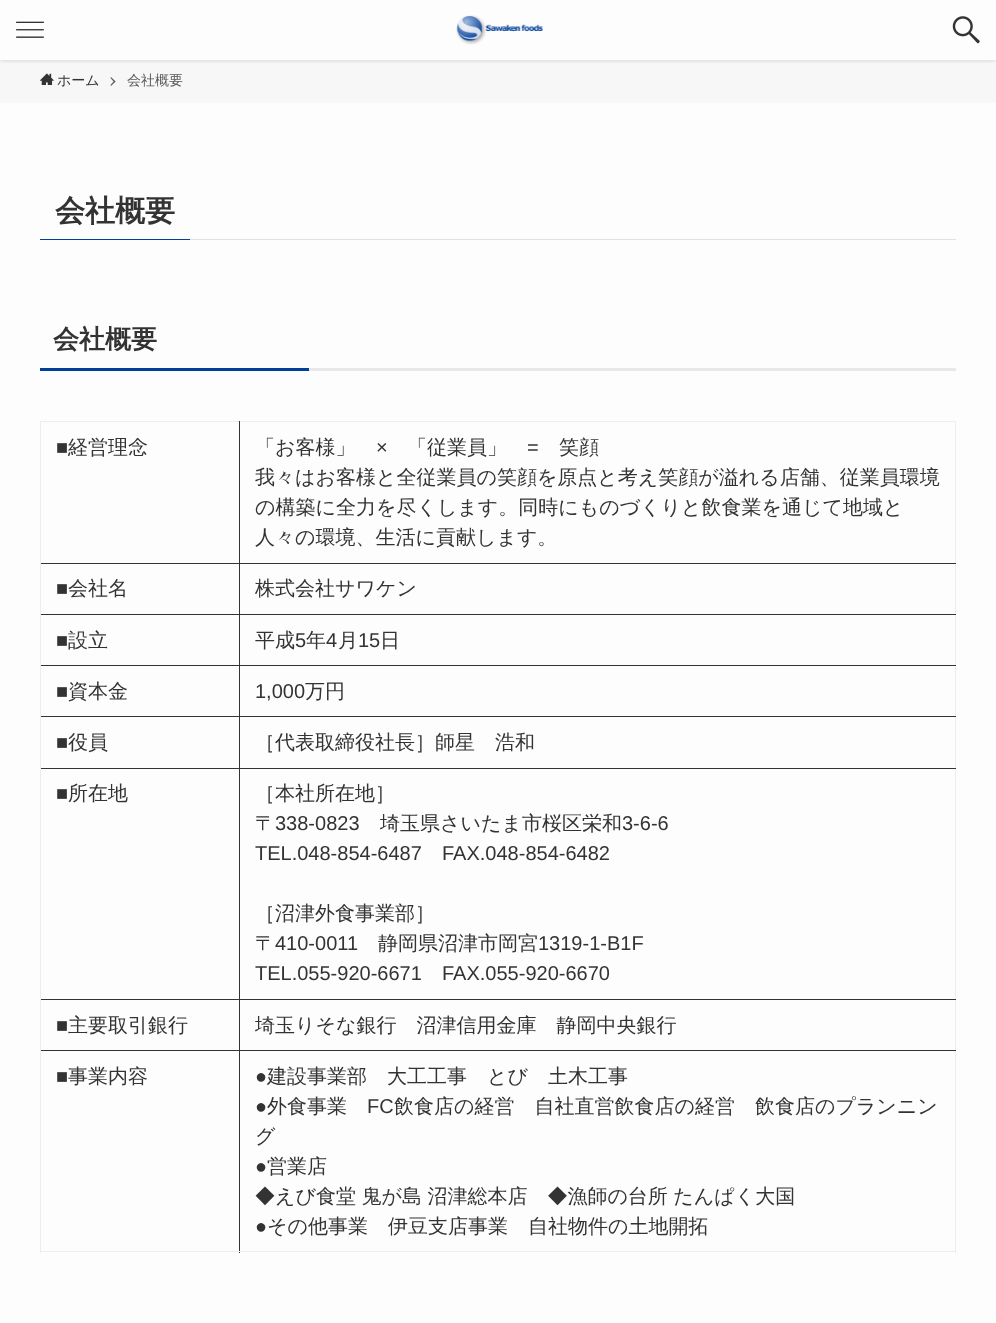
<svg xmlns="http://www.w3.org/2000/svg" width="996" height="1323">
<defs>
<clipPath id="clip1"><rect x="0" y="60" width="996" height="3"/></clipPath>
</defs>
<rect width="100%" height="100%" fill="#fdfdfd"/>
<rect y="60" width="996" height="43" fill="#f7f7f7"/>
<g clip-path="url(#clip1)">
<rect y="1" width="996" height="60" fill="#0000001f" filter="blur(2.5px)"/>
</g>
<image x="16" y="21" width="28" height="17" href="media/1.png"/>
<image x="456" y="15" width="87" height="30" href="media/2.png"/>
<image x="952" y="16" width="28" height="28" href="media/3.png"/>
<image x="40" y="73" width="14" height="12" href="media/4.png"/>
<text x="57" y="85" style="font-family:WenQuanYi Zen Hei;font-size:14px;font-weight:500;fill:#333">ホーム</text>
<path d="M111 77l4.5 4.5l-1 1l-4-4.5z" fill="#5a5a5a"/>
<path d="M114.5 80.5l1 1l-4.5 4.5l-.5-1z" fill="#5a5a5a"/>
<text x="127" y="85" style="font-family:WenQuanYi Zen Hei;font-size:14px;font-weight:500;fill:#5a5a5a">会社概要</text>
<rect x="190" y="239" width="766" height="1" fill="#e2e2e2"/>
<rect x="40" y="239" width="150" height="1" fill="#004097"/>
<text x="55" y="221" style="font-family:WenQuanYi Zen Hei;font-size:30px;font-weight:bold;fill:#333">会社概要</text>
<text x="53" y="348" style="font-family:WenQuanYi Zen Hei;font-size:26px;font-weight:bold;fill:#333">会社概要</text>
<rect x="40" y="368" width="269" height="3" fill="#004097"/>
<rect x="309" y="368" width="647" height="3" fill="#e8e8e8"/>
<rect x="40" y="421" width="916" height="1" fill="#ededed"/>
<rect x="955" y="563" width="1" height="690" fill="#ededed"/>
<rect x="955" y="421" width="1" height="143" fill="#ededed"/>
<rect x="239" y="1251" width="717" height="1" fill="#ededed"/>
<rect x="239" y="1050" width="1" height="203" fill="#333"/>
<rect x="239" y="1050" width="717" height="1" fill="#333"/>
<rect x="239" y="999" width="1" height="52" fill="#333"/>
<rect x="239" y="999" width="717" height="1" fill="#333"/>
<rect x="239" y="768" width="1" height="232" fill="#333"/>
<rect x="239" y="768" width="717" height="1" fill="#333"/>
<rect x="239" y="716" width="1" height="53" fill="#333"/>
<rect x="239" y="716" width="717" height="1" fill="#333"/>
<rect x="239" y="665" width="1" height="53" fill="#333"/>
<rect x="239" y="665" width="717" height="1" fill="#333"/>
<rect x="239" y="614" width="1" height="52" fill="#333"/>
<rect x="239" y="614" width="717" height="1" fill="#333"/>
<rect x="239" y="563" width="1" height="52" fill="#333"/>
<rect x="239" y="563" width="717" height="1" fill="#333"/>
<rect x="239" y="421" width="1" height="143" fill="#333"/>
<rect x="40" y="1251" width="200" height="1" fill="#ededed"/>
<rect x="40" y="1050" width="1" height="203" fill="#ededed"/>
<rect x="40" y="1050" width="200" height="1" fill="#333"/>
<rect x="40" y="999" width="1" height="52" fill="#ededed"/>
<rect x="40" y="999" width="200" height="1" fill="#333"/>
<rect x="40" y="768" width="1" height="232" fill="#ededed"/>
<rect x="40" y="768" width="200" height="1" fill="#333"/>
<rect x="40" y="716" width="1" height="53" fill="#ededed"/>
<rect x="40" y="716" width="200" height="1" fill="#333"/>
<rect x="40" y="665" width="1" height="53" fill="#ededed"/>
<rect x="40" y="665" width="200" height="1" fill="#333"/>
<rect x="40" y="614" width="1" height="52" fill="#ededed"/>
<rect x="40" y="614" width="200" height="1" fill="#333"/>
<rect x="40" y="563" width="1" height="52" fill="#ededed"/>
<rect x="40" y="563" width="200" height="1" fill="#333"/>
<rect x="40" y="421" width="1" height="143" fill="#ededed"/>
<text x="56" y="454" style="font-family:Liberation Sans;font-size:20px;fill:#333">■</text>
<text x="68" y="454" style="font-family:WenQuanYi Zen Hei;font-size:20px;font-weight:500;fill:#333">経営理念</text>
<text x="255" y="454" style="font-family:WenQuanYi Zen Hei;font-size:20px;font-weight:500;fill:#333">「お客様」</text>
<text x="376" y="454" style="font-family:Liberation Sans;font-size:20px;fill:#333">×</text>
<text x="407" y="454" style="font-family:WenQuanYi Zen Hei;font-size:20px;font-weight:500;fill:#333">「従業員」</text>
<text x="527" y="454" style="font-family:Liberation Sans;font-size:20px;fill:#333">=</text>
<text x="559" y="454" style="font-family:WenQuanYi Zen Hei;font-size:20px;font-weight:500;fill:#333">笑顔</text>
<text x="255" y="484" style="font-family:WenQuanYi Zen Hei;font-size:20px;font-weight:500;fill:#333">我々はお客様と全従業員の笑顔を原点と考え笑顔が溢れる店舗、従業員環境</text>
<text x="255" y="514" style="font-family:WenQuanYi Zen Hei;font-size:20px;font-weight:500;fill:#333">の構築に全力を尽くします。同時にものづくりと飲食業を通じて地域と</text>
<text x="255" y="544" style="font-family:WenQuanYi Zen Hei;font-size:20px;font-weight:500;fill:#333">人々の環境、生活に貢献します。</text>
<text x="56" y="595" style="font-family:Liberation Sans;font-size:20px;fill:#333">■</text>
<text x="68" y="595" style="font-family:WenQuanYi Zen Hei;font-size:20px;font-weight:500;fill:#333">会社名</text>
<text x="255" y="595" style="font-family:WenQuanYi Zen Hei;font-size:20px;font-weight:500;fill:#333">株式会社サワケン</text>
<text x="56" y="647" style="font-family:Liberation Sans;font-size:20px;fill:#333">■</text>
<text x="68" y="647" style="font-family:WenQuanYi Zen Hei;font-size:20px;font-weight:500;fill:#333">設立</text>
<text x="255" y="647" style="font-family:WenQuanYi Zen Hei;font-size:20px;font-weight:500;fill:#333">平成</text>
<text x="295" y="647" style="font-family:Liberation Sans;font-size:20px;fill:#333">5</text>
<text x="306" y="647" style="font-family:WenQuanYi Zen Hei;font-size:20px;font-weight:500;fill:#333">年</text>
<text x="326" y="647" style="font-family:Liberation Sans;font-size:20px;fill:#333">4</text>
<text x="338" y="647" style="font-family:WenQuanYi Zen Hei;font-size:20px;font-weight:500;fill:#333">月</text>
<text x="358" y="647" style="font-family:Liberation Sans;font-size:20px;fill:#333">15</text>
<text x="380" y="647" style="font-family:WenQuanYi Zen Hei;font-size:20px;font-weight:500;fill:#333">日</text>
<text x="56" y="698" style="font-family:Liberation Sans;font-size:20px;fill:#333">■</text>
<text x="68" y="698" style="font-family:WenQuanYi Zen Hei;font-size:20px;font-weight:500;fill:#333">資本金</text>
<text x="255" y="698" style="font-family:Liberation Sans;font-size:20px;fill:#333">1,000</text>
<text x="305" y="698" style="font-family:WenQuanYi Zen Hei;font-size:20px;font-weight:500;fill:#333">万円</text>
<text x="56" y="749" style="font-family:Liberation Sans;font-size:20px;fill:#333">■</text>
<text x="68" y="749" style="font-family:WenQuanYi Zen Hei;font-size:20px;font-weight:500;fill:#333">役員</text>
<text x="255" y="749" style="font-family:WenQuanYi Zen Hei;font-size:20px;font-weight:500;fill:#333">［代表取締役社長］師星　浩和</text>
<text x="56" y="800" style="font-family:Liberation Sans;font-size:20px;fill:#333">■</text>
<text x="68" y="800" style="font-family:WenQuanYi Zen Hei;font-size:20px;font-weight:500;fill:#333">所在地</text>
<text x="255" y="800" style="font-family:WenQuanYi Zen Hei;font-size:20px;font-weight:500;fill:#333">［本社所在地］</text>
<text x="255" y="830" style="font-family:WenQuanYi Zen Hei;font-size:20px;font-weight:500;fill:#333">〒</text>
<text x="275" y="830" style="font-family:Liberation Sans;font-size:20px;fill:#333">338-0823</text>
<text x="380" y="830" style="font-family:WenQuanYi Zen Hei;font-size:20px;font-weight:500;fill:#333">埼玉県さいたま市桜区栄和</text>
<text x="622" y="830" style="font-family:Liberation Sans;font-size:20px;fill:#333">3-6-6</text>
<text x="255" y="860" style="font-family:Liberation Sans;font-size:20px;fill:#333">TEL.048-854-6487</text>
<text x="442" y="860" style="font-family:Liberation Sans;font-size:20px;fill:#333">FAX.048-854-6482</text>
<text x="255" y="920" style="font-family:WenQuanYi Zen Hei;font-size:20px;font-weight:500;fill:#333">［沼津外食事業部］</text>
<text x="255" y="950" style="font-family:WenQuanYi Zen Hei;font-size:20px;font-weight:500;fill:#333">〒</text>
<text x="275" y="950" style="font-family:Liberation Sans;font-size:20px;fill:#333">410-0011</text>
<text x="378" y="950" style="font-family:WenQuanYi Zen Hei;font-size:20px;font-weight:500;fill:#333">静岡県沼津市岡宮</text>
<text x="538" y="950" style="font-family:Liberation Sans;font-size:20px;fill:#333">1319-1-B1F</text>
<text x="255" y="980" style="font-family:Liberation Sans;font-size:20px;fill:#333">TEL.055-920-6671</text>
<text x="442" y="980" style="font-family:Liberation Sans;font-size:20px;fill:#333">FAX.055-920-6670</text>
<text x="56" y="1032" style="font-family:Liberation Sans;font-size:20px;fill:#333">■</text>
<text x="68" y="1032" style="font-family:WenQuanYi Zen Hei;font-size:20px;font-weight:500;fill:#333">主要取引銀行</text>
<text x="255" y="1032" style="font-family:WenQuanYi Zen Hei;font-size:20px;font-weight:500;fill:#333">埼玉りそな銀行　沼津信用金庫　静岡中央銀行</text>
<text x="56" y="1083" style="font-family:Liberation Sans;font-size:20px;fill:#333">■</text>
<text x="68" y="1083" style="font-family:WenQuanYi Zen Hei;font-size:20px;font-weight:500;fill:#333">事業内容</text>
<text x="255" y="1083" style="font-family:Liberation Sans;font-size:20px;fill:#333">●</text>
<text x="267" y="1083" style="font-family:WenQuanYi Zen Hei;font-size:20px;font-weight:500;fill:#333">建設事業部　大工工事　とび　土木工事</text>
<text x="255" y="1113" style="font-family:Liberation Sans;font-size:20px;fill:#333">●</text>
<text x="267" y="1113" style="font-family:WenQuanYi Zen Hei;font-size:20px;font-weight:500;fill:#333">外食事業</text>
<text x="367" y="1113" style="font-family:Liberation Sans;font-size:20px;fill:#333">FC</text>
<text x="394" y="1113" style="font-family:WenQuanYi Zen Hei;font-size:20px;font-weight:500;fill:#333">飲食店の経営　自社直営飲食店の経営　飲食店のプランニン</text>
<text x="255" y="1143" style="font-family:WenQuanYi Zen Hei;font-size:20px;font-weight:500;fill:#333">グ</text>
<text x="255" y="1173" style="font-family:Liberation Sans;font-size:20px;fill:#333">●</text>
<text x="267" y="1173" style="font-family:WenQuanYi Zen Hei;font-size:20px;font-weight:500;fill:#333">営業店</text>
<text x="255" y="1203" word-spacing="-0.5" style="font-family:WenQuanYi Zen Hei;font-size:20px;font-weight:500;fill:#333">◆えび食堂 鬼が島 沼津総本店　◆漁師の台所 たんぱく大国</text>
<text x="255" y="1233" style="font-family:Liberation Sans;font-size:20px;fill:#333">●</text>
<text x="267" y="1233" style="font-family:WenQuanYi Zen Hei;font-size:20px;font-weight:500;fill:#333">その他事業　伊豆支店事業　自社物件の土地開拓</text>
</svg>
